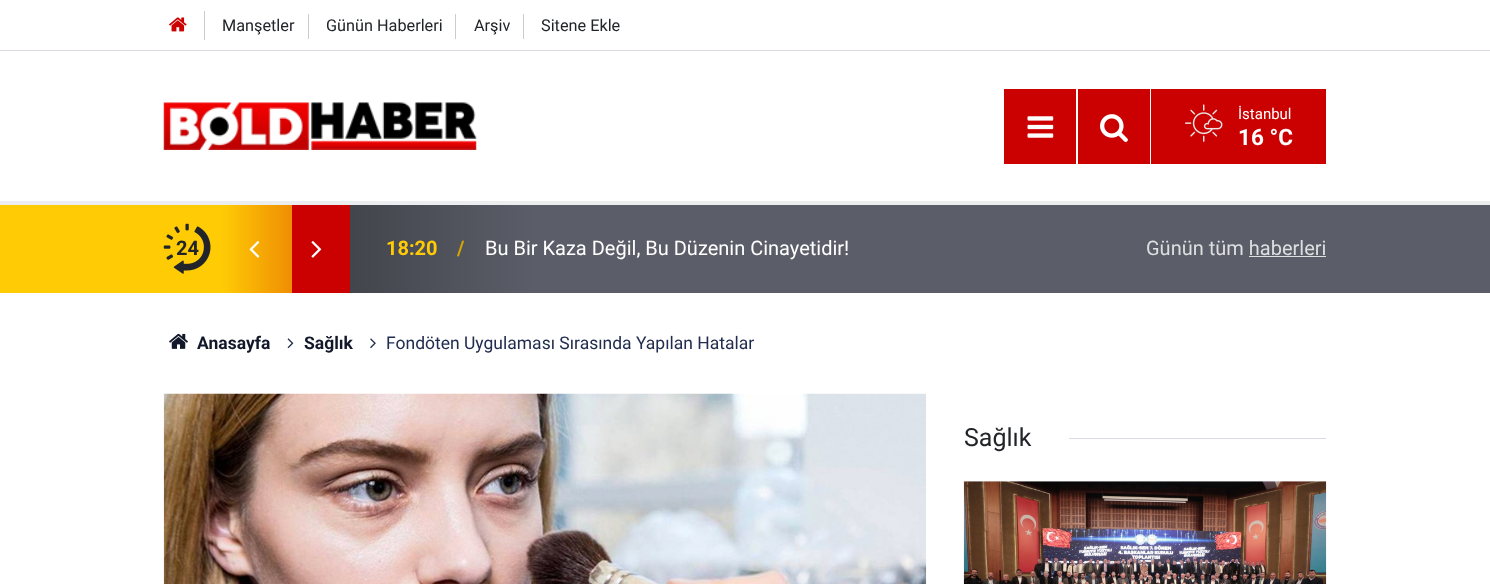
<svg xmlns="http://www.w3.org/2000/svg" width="1490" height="584">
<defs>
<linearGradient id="g1" gradientUnits="userSpaceOnUse" x1="164" y1="249" x2="1326" y2="249"><stop offset="0.05" stop-color="#ffcb05"/><stop offset="0.11" stop-color="#ef8e04"/><stop offset="0.11" stop-color="#cb0000"/><stop offset="0.16" stop-color="#cb0000"/><stop offset="0.16" stop-color="#43454d"/><stop offset="0.32" stop-color="#5b5e68"/></linearGradient>
</defs>
<rect width="100%" height="100%" fill="#fff"/>
<rect x="204" y="11" width="1" height="29" fill="#ccc"/>
<image x="169" y="17" width="18" height="15" href="media/1.png"/>
<rect x="308" y="14" width="1" height="25" fill="#ccc"/>
<text x="222" y="31" style="font-family:Roboto;font-size:16.25px;fill:#212529">Manşetler</text>
<rect x="455" y="14" width="1" height="25" fill="#ccc"/>
<text x="326" y="31" style="font-family:Roboto;font-size:16.25px;fill:#212529">Günün Haberleri</text>
<rect x="523" y="14" width="1" height="25" fill="#ccc"/>
<text x="474" y="31" style="font-family:Roboto;font-size:16.25px;fill:#212529">Arşiv</text>
<text x="541" y="31" style="font-family:Roboto;font-size:16.25px;fill:#212529">Sitene Ekle</text>
<rect y="50" width="1490" height="1" fill="#d7dae1"/>
<rect y="201" width="1490" height="4" fill="#ecedee"/>
<image x="163" y="102" width="314" height="48" href="media/2.png"/>
<rect x="1004" y="89" width="72" height="75" fill="#cb0000"/>
<image x="1027" y="116" width="27" height="22" href="media/3.png"/>
<rect x="1078" y="89" width="72" height="75" fill="#cb0000"/>
<image x="1100" y="114" width="28" height="28" href="media/4.png"/>
<rect x="1151" y="89" width="175" height="75" fill="#cb0000"/>
<image x="1185" y="104" width="38" height="38" href="media/5.png"/>
<text x="1238" y="119" style="font-family:Roboto;font-size:15px;fill:#fff">İstanbul</text>
<text x="1238" y="145" style="font-family:Roboto;font-size:22.5px;font-weight:bold;fill:#fff">16 °C</text>
<rect y="205" width="164" height="88" fill="#ffcb05"/>
<rect x="1326" y="205" width="164" height="88" fill="#5b5e68"/>
<rect x="164" y="205" width="1162" height="88" fill="url(#g1)"/>
<image x="163" y="223" width="48" height="51" href="media/6.png"/>
<text x="176" y="255" style="font-family:Roboto;font-size:20px;font-weight:bold;fill:#212529">24</text>
<image x="249" y="241" width="11" height="17" href="media/7.png"/>
<image x="311" y="241" width="11" height="17" href="media/8.png"/>
<text x="386" y="255" style="font-family:Roboto;font-size:20px;font-weight:bold;fill:#ffcb05">18:20</text>
<text x="457" y="255" style="font-family:Roboto;font-size:20px;font-weight:bold;fill:#d1a600">/</text>
<text x="485" y="255" style="font-family:Roboto;font-size:20px;fill:#fff">Bu Bir Kaza Değil, Bu Düzenin Cinayetidir!</text>
<text x="1146" y="255" style="font-family:Roboto;font-size:20px;fill:#dedfe1">Günün tüm haberleri</text>
<rect x="1249" y="256" width="77" height="1" fill="#dedfe1"/>
<image x="169" y="333" width="19" height="16" href="media/9.png"/>
<text x="197" y="349" style="font-family:Roboto;font-size:17.5px;font-weight:bold;fill:#12182a">Anasayfa</text>
<image x="287" y="338" width="7" height="11" href="media/10.png"/>
<text x="304" y="349" style="font-family:Roboto;font-size:17.5px;font-weight:bold;fill:#12182a">Sağlık</text>
<image x="370" y="338" width="6" height="11" href="media/11.png"/>
<text x="386" y="349" style="font-family:Roboto;font-size:17.5px;fill:#212c4e">Fondöten Uygulaması Sırasında Yapılan Hatalar</text>
<image x="163" y="393" width="764" height="191" href="media/12.png"/>
<text x="964" y="446" style="font-family:Roboto;font-size:25px;fill:#212529">Sağlık</text>
<rect x="1069" y="438" width="257" height="1" fill="#d9dbe2"/>
<rect x="964" y="481" width="362" height="1" fill="#f8f8f8"/>
<image x="963" y="481" width="364" height="103" href="media/13.png"/>
</svg>
